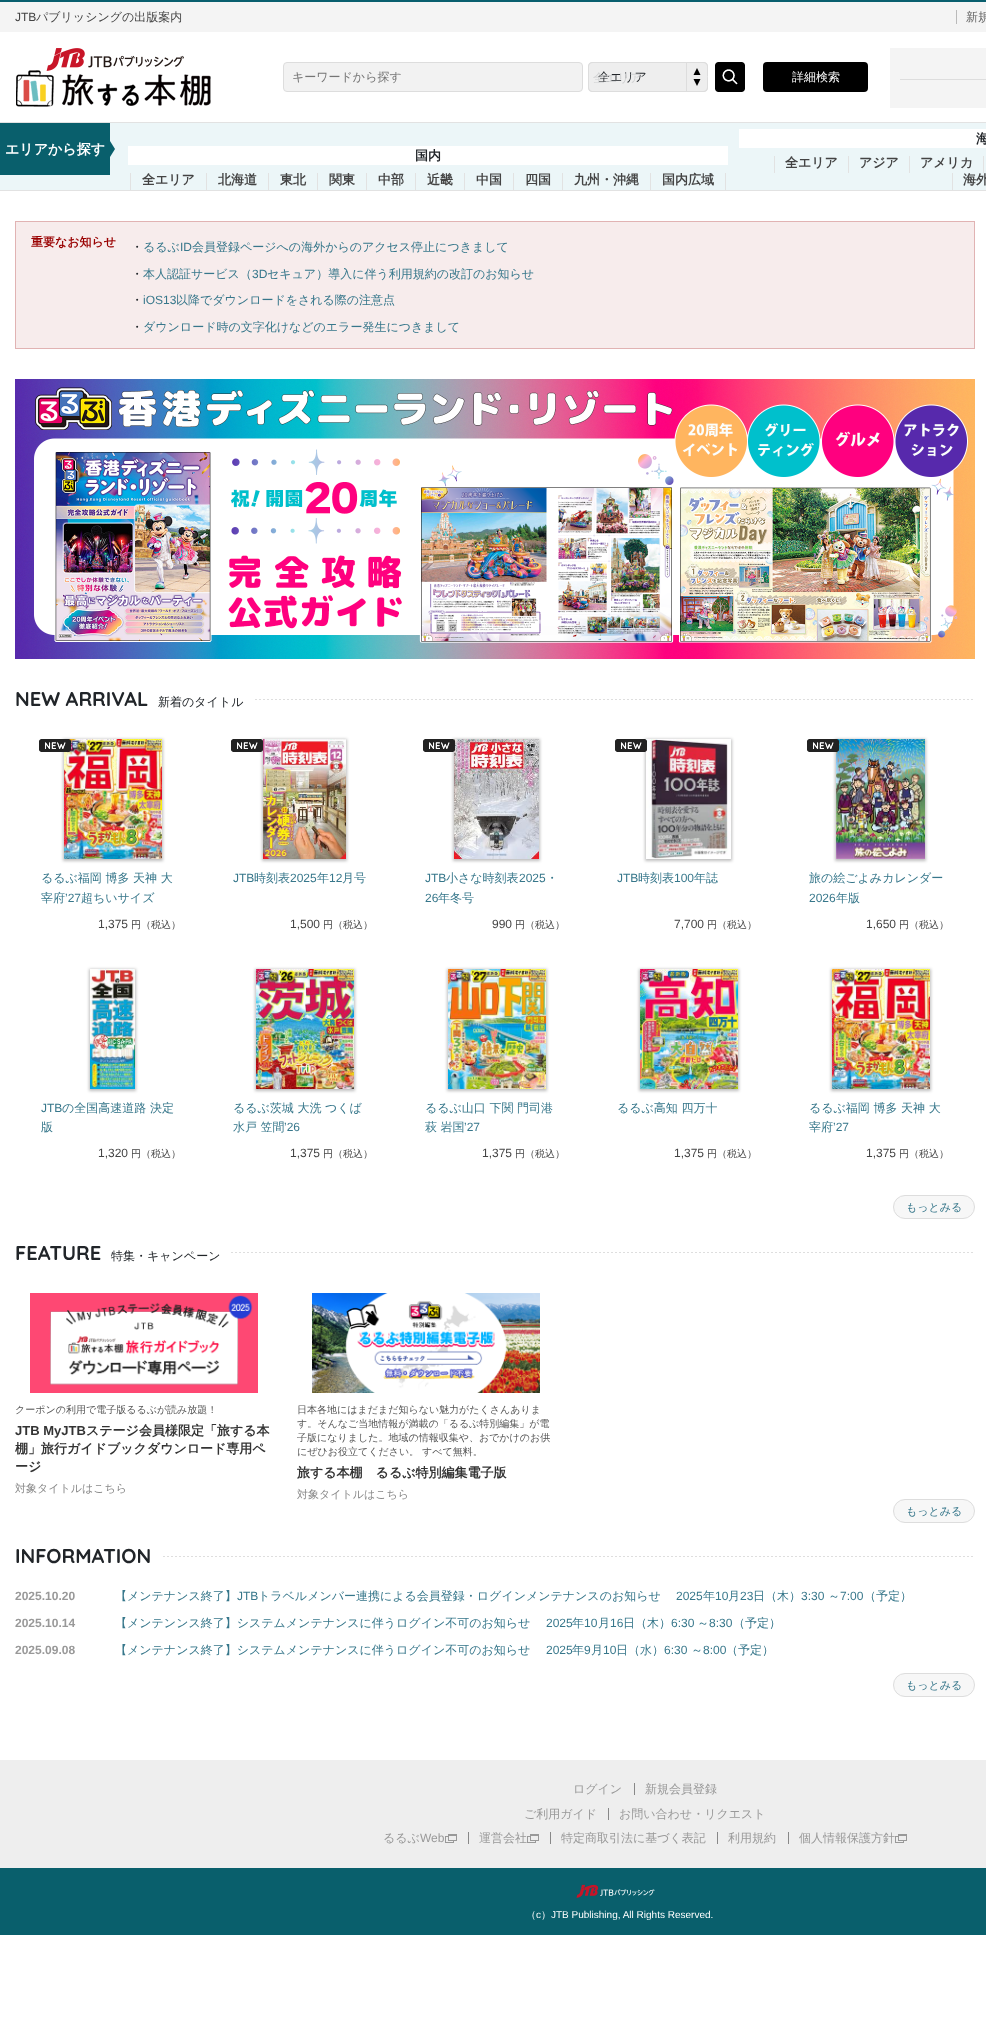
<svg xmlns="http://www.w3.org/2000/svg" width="986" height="2039">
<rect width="100%" height="100%" fill="#fff"/>
<rect y="2" width="986" height="30" fill="#f4f4f4"/>
<rect width="986" height="2" fill="#095f6e"/>
<text x="15" y="21" style="font-family:Liberation Sans;font-size:12px;fill:#444">JTB</text>
<text x="36" y="21" style="font-family:WenQuanYi Zen Hei;font-size:12px;font-weight:500;fill:#444">パブリッシングの出版案内</text>
<text x="966" y="21" style="font-family:WenQuanYi Zen Hei;font-size:12px;font-weight:500;fill:#666">新規</text>
<rect x="956" y="10" width="1" height="14" fill="#bababa"/>
<image x="16" y="48" width="195" height="59" href="media/1.png"/>
<rect x="283.5" y="62.5" width="299" height="29" rx="3.5" fill="#f2f2f2" stroke="#ddd"/>
<text x="292" y="81" style="font-family:WenQuanYi Zen Hei;font-size:12px;font-weight:500;fill:#757575">キーワードから探す</text>
<image x="588" y="62" width="120" height="30" href="media/2.png"/>
<text x="598" y="81" style="font-family:WenQuanYi Zen Hei;font-size:12px;font-weight:500;fill:#212529">全エリア</text>
<path d="M699 76l4 4l4-4" fill="none" stroke="#eee" stroke-width="2"/>
<text x="593" y="82" style="font-family:WenQuanYi Zen Hei;font-size:12px;font-weight:500;fill:#d0d1d2">全エリア</text>
<image x="715" y="62" width="30" height="30" href="media/3.png"/>
<rect x="763" y="62" width="105" height="30" rx="4" fill="#000"/>
<text x="792" y="81" style="font-family:WenQuanYi Zen Hei;font-size:12px;font-weight:500;fill:#fff">詳細検索</text>
<rect x="890" y="48" width="96" height="60" fill="#f4f4f4"/>
<rect x="900" y="79" width="86" height="1" fill="#ddd"/>
<rect y="123" width="986" height="67" fill="#ecf6f8"/>
<rect y="122" width="986" height="1" fill="#e2e2e2"/>
<rect y="190" width="986" height="1" fill="#e2e2e2"/>
<rect y="123" width="110" height="52" fill="#095f6c"/>
<text x="5" y="154" style="font-family:WenQuanYi Zen Hei;font-size:14px;font-weight:bold;fill:#fff">エリアから探す</text>
<path d="M110 157v-16l5 8z" fill="#095f6c"/>
<rect x="128" y="146" width="600" height="19" fill="#fff"/>
<text x="415" y="160" style="font-family:WenQuanYi Zen Hei;font-size:13px;font-weight:bold;fill:#212529">国内</text>
<rect x="130" y="173" width="1" height="17" fill="#e2e2e2"/>
<text x="142" y="184" style="font-family:WenQuanYi Zen Hei;font-size:13px;font-weight:bold;fill:#444">全エリア</text>
<rect x="206" y="173" width="1" height="17" fill="#e2e2e2"/>
<text x="218" y="184" style="font-family:WenQuanYi Zen Hei;font-size:13px;font-weight:bold;fill:#444">北海道</text>
<rect x="268" y="173" width="1" height="17" fill="#e2e2e2"/>
<text x="280" y="184" style="font-family:WenQuanYi Zen Hei;font-size:13px;font-weight:bold;fill:#444">東北</text>
<rect x="317" y="173" width="1" height="17" fill="#e2e2e2"/>
<text x="329" y="184" style="font-family:WenQuanYi Zen Hei;font-size:13px;font-weight:bold;fill:#444">関東</text>
<rect x="366" y="173" width="1" height="17" fill="#e2e2e2"/>
<text x="378" y="184" style="font-family:WenQuanYi Zen Hei;font-size:13px;font-weight:bold;fill:#444">中部</text>
<rect x="415" y="173" width="1" height="17" fill="#e2e2e2"/>
<text x="427" y="184" style="font-family:WenQuanYi Zen Hei;font-size:13px;font-weight:bold;fill:#444">近畿</text>
<rect x="464" y="173" width="1" height="17" fill="#e2e2e2"/>
<text x="476" y="184" style="font-family:WenQuanYi Zen Hei;font-size:13px;font-weight:bold;fill:#444">中国</text>
<rect x="513" y="173" width="1" height="17" fill="#e2e2e2"/>
<text x="525" y="184" style="font-family:WenQuanYi Zen Hei;font-size:13px;font-weight:bold;fill:#444">四国</text>
<rect x="562" y="173" width="1" height="17" fill="#e2e2e2"/>
<text x="574" y="184" style="font-family:WenQuanYi Zen Hei;font-size:13px;font-weight:bold;fill:#444">九州・沖縄</text>
<rect x="725" y="173" width="1" height="17" fill="#e2e2e2"/>
<rect x="650" y="173" width="1" height="17" fill="#e2e2e2"/>
<text x="662" y="184" style="font-family:WenQuanYi Zen Hei;font-size:13px;font-weight:bold;fill:#444">国内広域</text>
<rect x="739" y="129" width="247" height="19" fill="#fff"/>
<text x="976" y="143" style="font-family:WenQuanYi Zen Hei;font-size:13px;font-weight:bold;fill:#212529">海</text>
<rect x="774" y="156" width="1" height="17" fill="#e2e2e2"/>
<text x="785" y="167" style="font-family:WenQuanYi Zen Hei;font-size:13px;font-weight:bold;fill:#444">全エリア</text>
<rect x="848" y="156" width="1" height="17" fill="#e2e2e2"/>
<text x="859" y="167" style="font-family:WenQuanYi Zen Hei;font-size:13px;font-weight:bold;fill:#444">アジア</text>
<rect x="909" y="156" width="1" height="17" fill="#e2e2e2"/>
<text x="920" y="167" style="font-family:WenQuanYi Zen Hei;font-size:13px;font-weight:bold;fill:#444">アメリカ</text>
<rect x="983" y="156" width="1" height="17" fill="#e2e2e2"/>
<rect x="952" y="173" width="1" height="17" fill="#e2e2e2"/>
<text x="963" y="184" style="font-family:WenQuanYi Zen Hei;font-size:13px;font-weight:bold;fill:#444">海外</text>
<rect x="15.5" y="221.5" width="959" height="127" fill="#f7ecec" stroke="#e1b3b3"/>
<text x="31" y="246" style="font-family:WenQuanYi Zen Hei;font-size:12px;font-weight:bold;fill:#900">重要なお知らせ</text>
<text x="131" y="251" style="font-family:WenQuanYi Zen Hei;font-size:12px;font-weight:500;fill:#212529">・</text>
<text x="143" y="251" style="font-family:WenQuanYi Zen Hei;font-size:12px;font-weight:500;fill:#37778b">るるぶ</text>
<text x="180" y="251" style="font-family:Liberation Sans;font-size:12px;fill:#37778b">ID</text>
<text x="192" y="251" style="font-family:WenQuanYi Zen Hei;font-size:12px;font-weight:500;fill:#37778b">会員登録ページへの海外からのアクセス停止につきまして</text>
<text x="131" y="278" style="font-family:WenQuanYi Zen Hei;font-size:12px;font-weight:500;fill:#212529">・</text>
<text x="143" y="278" style="font-family:WenQuanYi Zen Hei;font-size:12px;font-weight:500;fill:#37778b">本人認証サービス（</text>
<text x="252" y="278" style="font-family:Liberation Sans;font-size:12px;fill:#37778b">3D</text>
<text x="267" y="278" style="font-family:WenQuanYi Zen Hei;font-size:12px;font-weight:500;fill:#37778b">セキュア）導入に伴う利用規約の改訂のお知らせ</text>
<text x="131" y="304" style="font-family:WenQuanYi Zen Hei;font-size:12px;font-weight:500;fill:#212529">・</text>
<text x="143" y="304" style="font-family:Liberation Sans;font-size:12px;fill:#37778b">iOS13</text>
<text x="176" y="304" style="font-family:WenQuanYi Zen Hei;font-size:12px;font-weight:500;fill:#37778b">以降でダウンロードをされる際の注意点</text>
<text x="131" y="331" style="font-family:WenQuanYi Zen Hei;font-size:12px;font-weight:500;fill:#212529">・</text>
<text x="143" y="331" style="font-family:WenQuanYi Zen Hei;font-size:12px;font-weight:500;fill:#37778b">ダウンロード時の文字化けなどのエラー発生につきまして</text>
<image x="15" y="379" width="960" height="280" href="media/4.png"/>
<image x="255" y="699" width="718" height="1" href="media/5.png"/>
<text x="15" y="706" style="font-family:Quicksand;font-size:20px;font-weight:bold;fill:#212529">NEW ARRIVAL</text>
<text x="158" y="706" style="font-family:WenQuanYi Zen Hei;font-size:12px;font-weight:500;fill:#212529">新着のタイトル</text>
<rect x="63" y="739" width="100" height="122" fill="#00000040" filter="blur(1.5px)"/>
<image x="64" y="739" width="98" height="120" href="media/7.png"/>
<image x="39" y="739" width="32" height="13" href="media/6.png"/>
<text x="41" y="882" style="font-family:WenQuanYi Zen Hei;font-size:12px;font-weight:500;fill:#37778b">るるぶ福岡 博多 天神 大</text>
<text x="41" y="902" style="font-family:WenQuanYi Zen Hei;font-size:12px;font-weight:500;fill:#37778b">宰府</text>
<text x="65" y="902" style="font-family:Liberation Sans;font-size:12px;fill:#37778b">’27</text>
<text x="81" y="902" style="font-family:WenQuanYi Zen Hei;font-size:12px;font-weight:500;fill:#37778b">超ちいサイズ</text>
<text x="98" y="928" style="font-family:Liberation Sans;font-size:12px;fill:#444">1,375</text>
<text x="131" y="928" style="font-family:WenQuanYi Zen Hei;font-size:10px;font-weight:500;fill:#444">円（税込）</text>
<rect x="262" y="739" width="85" height="122" fill="#00000040" filter="blur(1.5px)"/>
<image x="231" y="739" width="32" height="13" href="media/8.png"/>
<image x="263" y="739" width="83" height="120" href="media/9.png"/>
<text x="233" y="882" style="font-family:Liberation Sans;font-size:12px;fill:#37778b">JTB</text>
<text x="254" y="882" style="font-family:WenQuanYi Zen Hei;font-size:12px;font-weight:500;fill:#37778b">時刻表</text>
<text x="290" y="882" style="font-family:Liberation Sans;font-size:12px;fill:#37778b">2025</text>
<text x="317" y="882" style="font-family:WenQuanYi Zen Hei;font-size:12px;font-weight:500;fill:#37778b">年</text>
<text x="329" y="882" style="font-family:Liberation Sans;font-size:12px;fill:#37778b">12</text>
<text x="342" y="882" style="font-family:WenQuanYi Zen Hei;font-size:12px;font-weight:500;fill:#37778b">月号</text>
<text x="290" y="928" style="font-family:Liberation Sans;font-size:12px;fill:#444">1,500</text>
<text x="323" y="928" style="font-family:WenQuanYi Zen Hei;font-size:10px;font-weight:500;fill:#444">円（税込）</text>
<rect x="453" y="739" width="87" height="122" fill="#00000040" filter="blur(1.5px)"/>
<image x="454" y="739" width="85" height="120" href="media/11.png"/>
<image x="423" y="739" width="32" height="13" href="media/10.png"/>
<text x="425" y="882" style="font-family:Liberation Sans;font-size:12px;fill:#37778b">JTB</text>
<text x="446" y="882" style="font-family:WenQuanYi Zen Hei;font-size:12px;font-weight:500;fill:#37778b">小さな時刻表</text>
<text x="519" y="882" style="font-family:Liberation Sans;font-size:12px;fill:#37778b">2025</text>
<text x="546" y="882" style="font-family:WenQuanYi Zen Hei;font-size:12px;font-weight:500;fill:#37778b">・</text>
<text x="425" y="902" style="font-family:Liberation Sans;font-size:12px;fill:#37778b">26</text>
<text x="438" y="902" style="font-family:WenQuanYi Zen Hei;font-size:12px;font-weight:500;fill:#37778b">年冬号</text>
<text x="492" y="928" style="font-family:Liberation Sans;font-size:12px;fill:#444">990</text>
<text x="515" y="928" style="font-family:WenQuanYi Zen Hei;font-size:10px;font-weight:500;fill:#444">円（税込）</text>
<rect x="645" y="739" width="87" height="122" fill="#00000040" filter="blur(1.5px)"/>
<image x="646" y="739" width="85" height="120" href="media/13.png"/>
<image x="615" y="739" width="32" height="13" href="media/12.png"/>
<text x="617" y="882" style="font-family:Liberation Sans;font-size:12px;fill:#37778b">JTB</text>
<text x="638" y="882" style="font-family:WenQuanYi Zen Hei;font-size:12px;font-weight:500;fill:#37778b">時刻表</text>
<text x="674" y="882" style="font-family:Liberation Sans;font-size:12px;fill:#37778b">100</text>
<text x="694" y="882" style="font-family:WenQuanYi Zen Hei;font-size:12px;font-weight:500;fill:#37778b">年誌</text>
<text x="674" y="928" style="font-family:Liberation Sans;font-size:12px;fill:#444">7,700</text>
<text x="707" y="928" style="font-family:WenQuanYi Zen Hei;font-size:10px;font-weight:500;fill:#444">円（税込）</text>
<rect x="835" y="739" width="91" height="122" fill="#00000040" filter="blur(1.5px)"/>
<image x="836" y="739" width="89" height="120" href="media/15.png"/>
<image x="807" y="739" width="32" height="13" href="media/14.png"/>
<text x="809" y="882" style="font-family:WenQuanYi Zen Hei;font-size:12px;font-weight:500;fill:#37778b">旅の絵ごよみカレンダー</text>
<text x="809" y="902" style="font-family:Liberation Sans;font-size:12px;fill:#37778b">2026</text>
<text x="836" y="902" style="font-family:WenQuanYi Zen Hei;font-size:12px;font-weight:500;fill:#37778b">年版</text>
<text x="866" y="928" style="font-family:Liberation Sans;font-size:12px;fill:#444">1,650</text>
<text x="899" y="928" style="font-family:WenQuanYi Zen Hei;font-size:10px;font-weight:500;fill:#444">円（税込）</text>
<rect x="89" y="969" width="47" height="122" fill="#00000040" filter="blur(1.5px)"/>
<image x="90" y="969" width="45" height="120" href="media/16.png"/>
<text x="41" y="1112" style="font-family:Liberation Sans;font-size:12px;fill:#37778b">JTB</text>
<text x="62" y="1112" style="font-family:WenQuanYi Zen Hei;font-size:12px;font-weight:500;fill:#37778b">の全国高速道路 決定</text>
<text x="41" y="1131" style="font-family:WenQuanYi Zen Hei;font-size:12px;font-weight:500;fill:#37778b">版</text>
<text x="98" y="1157" style="font-family:Liberation Sans;font-size:12px;fill:#444">1,320</text>
<text x="131" y="1157" style="font-family:WenQuanYi Zen Hei;font-size:10px;font-weight:500;fill:#444">円（税込）</text>
<rect x="255" y="969" width="100" height="122" fill="#00000040" filter="blur(1.5px)"/>
<image x="256" y="969" width="98" height="120" href="media/17.png"/>
<text x="233" y="1112" style="font-family:WenQuanYi Zen Hei;font-size:12px;font-weight:500;fill:#37778b">るるぶ茨城 大洗 つくば</text>
<text x="233" y="1131" style="font-family:WenQuanYi Zen Hei;font-size:12px;font-weight:500;fill:#37778b">水戸 笠間</text>
<text x="284" y="1131" style="font-family:Liberation Sans;font-size:12px;fill:#37778b">’26</text>
<text x="290" y="1157" style="font-family:Liberation Sans;font-size:12px;fill:#444">1,375</text>
<text x="323" y="1157" style="font-family:WenQuanYi Zen Hei;font-size:10px;font-weight:500;fill:#444">円（税込）</text>
<rect x="447" y="969" width="100" height="122" fill="#00000040" filter="blur(1.5px)"/>
<image x="448" y="969" width="98" height="120" href="media/18.png"/>
<text x="425" y="1112" style="font-family:WenQuanYi Zen Hei;font-size:12px;font-weight:500;fill:#37778b">るるぶ山口 下関 門司港</text>
<text x="425" y="1131" style="font-family:WenQuanYi Zen Hei;font-size:12px;font-weight:500;fill:#37778b">萩 岩国</text>
<text x="464" y="1131" style="font-family:Liberation Sans;font-size:12px;fill:#37778b">’27</text>
<text x="482" y="1157" style="font-family:Liberation Sans;font-size:12px;fill:#444">1,375</text>
<text x="515" y="1157" style="font-family:WenQuanYi Zen Hei;font-size:10px;font-weight:500;fill:#444">円（税込）</text>
<rect x="639" y="969" width="100" height="122" fill="#00000040" filter="blur(1.5px)"/>
<image x="640" y="969" width="98" height="120" href="media/19.png"/>
<text x="617" y="1112" style="font-family:WenQuanYi Zen Hei;font-size:12px;font-weight:500;fill:#37778b">るるぶ高知 四万十</text>
<text x="674" y="1157" style="font-family:Liberation Sans;font-size:12px;fill:#444">1,375</text>
<text x="707" y="1157" style="font-family:WenQuanYi Zen Hei;font-size:10px;font-weight:500;fill:#444">円（税込）</text>
<rect x="831" y="969" width="100" height="122" fill="#00000040" filter="blur(1.5px)"/>
<image x="832" y="969" width="98" height="120" href="media/20.png"/>
<text x="809" y="1112" style="font-family:WenQuanYi Zen Hei;font-size:12px;font-weight:500;fill:#37778b">るるぶ福岡 博多 天神 大</text>
<text x="809" y="1131" style="font-family:WenQuanYi Zen Hei;font-size:12px;font-weight:500;fill:#37778b">宰府</text>
<text x="833" y="1131" style="font-family:Liberation Sans;font-size:12px;fill:#37778b">’27</text>
<text x="866" y="1157" style="font-family:Liberation Sans;font-size:12px;fill:#444">1,375</text>
<text x="899" y="1157" style="font-family:WenQuanYi Zen Hei;font-size:10px;font-weight:500;fill:#444">円（税込）</text>
<rect x="893.5" y="1195.5" width="81" height="23" rx="11.5" fill="#f7f7f7" stroke="#ddd"/>
<text x="906" y="1211" style="font-family:WenQuanYi Zen Hei;font-size:11px;font-weight:500;fill:#37778b">もっとみる</text>
<image x="231" y="1252" width="742" height="1" href="media/21.png"/>
<text x="15" y="1260" style="font-family:Quicksand;font-size:20px;font-weight:bold;fill:#212529">FEATURE</text>
<text x="111" y="1260" style="font-family:WenQuanYi Zen Hei;font-size:12px;font-weight:500;fill:#212529">特集・キャンペーン</text>
<image x="30" y="1293" width="228" height="100" href="media/22.png"/>
<text x="15" y="1413" style="font-family:WenQuanYi Zen Hei;font-size:10px;font-weight:500;fill:#555">クーポンの利用で電子版るるぶが読み放題！</text>
<text x="15" y="1435" style="font-family:Liberation Sans;font-size:13px;font-weight:bold;fill:#333">JTB MyJTB</text>
<text x="86" y="1435" style="font-family:WenQuanYi Zen Hei;font-size:13px;font-weight:bold;fill:#333">ステージ会員様限定「旅する本</text>
<text x="15" y="1453" style="font-family:WenQuanYi Zen Hei;font-size:13px;font-weight:bold;fill:#333">棚」旅行ガイドブックダウンロード専用ペ</text>
<text x="15" y="1471" style="font-family:WenQuanYi Zen Hei;font-size:13px;font-weight:bold;fill:#333">ージ</text>
<text x="15" y="1492" style="font-family:WenQuanYi Zen Hei;font-size:11px;font-weight:500;fill:#888">対象タイトルはこちら</text>
<image x="312" y="1293" width="228" height="100" href="media/23.png"/>
<text x="297" y="1413" style="font-family:WenQuanYi Zen Hei;font-size:10px;font-weight:500;fill:#555">日本各地にはまだまだ知らない魅力がたくさんありま</text>
<text x="297" y="1427" style="font-family:WenQuanYi Zen Hei;font-size:10px;font-weight:500;fill:#555">す。そんなご当地情報が満載の「るるぶ特別編集」が電</text>
<text x="297" y="1441" style="font-family:WenQuanYi Zen Hei;font-size:10px;font-weight:500;fill:#555">子版になりました。地域の情報収集や、おでかけのお供</text>
<text x="297" y="1455" style="font-family:WenQuanYi Zen Hei;font-size:10px;font-weight:500;fill:#555">にぜひお役立てください。 すべて無料。</text>
<text x="297" y="1477" style="font-family:WenQuanYi Zen Hei;font-size:13px;font-weight:bold;fill:#333">旅する本棚　るるぶ特別編集電子版</text>
<text x="297" y="1498" style="font-family:WenQuanYi Zen Hei;font-size:11px;font-weight:500;fill:#888">対象タイトルはこちら</text>
<rect x="893.5" y="1499.5" width="81" height="23" rx="11.5" fill="#f7f7f7" stroke="#ddd"/>
<text x="906" y="1515" style="font-family:WenQuanYi Zen Hei;font-size:11px;font-weight:500;fill:#37778b">もっとみる</text>
<image x="163" y="1556" width="810" height="1" href="media/24.png"/>
<text x="15" y="1563" style="font-family:Quicksand;font-size:20px;font-weight:bold;fill:#212529">INFORMATION</text>
<text x="15" y="1600" style="font-family:Liberation Sans;font-size:12px;font-weight:bold;fill:#999">2025.10.20</text>
<text x="115" y="1600" style="font-family:WenQuanYi Zen Hei;font-size:12px;font-weight:500;fill:#37778b">【メンテナンス終了】</text>
<text x="237" y="1600" style="font-family:Liberation Sans;font-size:12px;fill:#37778b">JTB</text>
<text x="258" y="1600" style="font-family:WenQuanYi Zen Hei;font-size:12px;font-weight:500;fill:#37778b">トラベルメンバー連携による会員登録・ログインメンテナンスのお知らせ</text>
<text x="676" y="1600" style="font-family:Liberation Sans;font-size:12px;fill:#37778b">2025</text>
<text x="703" y="1600" style="font-family:WenQuanYi Zen Hei;font-size:12px;font-weight:500;fill:#37778b">年</text>
<text x="715" y="1600" style="font-family:Liberation Sans;font-size:12px;fill:#37778b">10</text>
<text x="728" y="1600" style="font-family:WenQuanYi Zen Hei;font-size:12px;font-weight:500;fill:#37778b">月</text>
<text x="740" y="1600" style="font-family:Liberation Sans;font-size:12px;fill:#37778b">23</text>
<text x="753" y="1600" style="font-family:WenQuanYi Zen Hei;font-size:12px;font-weight:500;fill:#37778b">日（木）</text>
<text x="801" y="1600" style="font-family:Liberation Sans;font-size:12px;fill:#37778b">3:30</text>
<text x="828" y="1600" style="font-family:WenQuanYi Zen Hei;font-size:12px;font-weight:500;fill:#37778b">～</text>
<text x="840" y="1600" style="font-family:Liberation Sans;font-size:12px;fill:#37778b">7:00</text>
<text x="864" y="1600" style="font-family:WenQuanYi Zen Hei;font-size:12px;font-weight:500;fill:#37778b">（予定）</text>
<text x="15" y="1627" style="font-family:Liberation Sans;font-size:12px;font-weight:bold;fill:#999">2025.10.14</text>
<text x="115" y="1627" style="font-family:WenQuanYi Zen Hei;font-size:12px;font-weight:500;fill:#37778b">【メンテンンス終了】システムメンテナンスに伴うログイン不可のお知らせ</text>
<text x="546" y="1627" style="font-family:Liberation Sans;font-size:12px;fill:#37778b">2025</text>
<text x="572" y="1627" style="font-family:WenQuanYi Zen Hei;font-size:12px;font-weight:500;fill:#37778b">年</text>
<text x="584" y="1627" style="font-family:Liberation Sans;font-size:12px;fill:#37778b">10</text>
<text x="598" y="1627" style="font-family:WenQuanYi Zen Hei;font-size:12px;font-weight:500;fill:#37778b">月</text>
<text x="610" y="1627" style="font-family:Liberation Sans;font-size:12px;fill:#37778b">16</text>
<text x="623" y="1627" style="font-family:WenQuanYi Zen Hei;font-size:12px;font-weight:500;fill:#37778b">日（木）</text>
<text x="671" y="1627" style="font-family:Liberation Sans;font-size:12px;fill:#37778b">6:30</text>
<text x="697" y="1627" style="font-family:WenQuanYi Zen Hei;font-size:12px;font-weight:500;fill:#37778b">～</text>
<text x="709" y="1627" style="font-family:Liberation Sans;font-size:12px;fill:#37778b">8:30</text>
<text x="733" y="1627" style="font-family:WenQuanYi Zen Hei;font-size:12px;font-weight:500;fill:#37778b">（予定）</text>
<text x="15" y="1654" style="font-family:Liberation Sans;font-size:12px;font-weight:bold;fill:#999">2025.09.08</text>
<text x="115" y="1654" style="font-family:WenQuanYi Zen Hei;font-size:12px;font-weight:500;fill:#37778b">【メンテナンス終了】システムメンテナンスに伴うログイン不可のお知らせ</text>
<text x="546" y="1654" style="font-family:Liberation Sans;font-size:12px;fill:#37778b">2025</text>
<text x="572" y="1654" style="font-family:WenQuanYi Zen Hei;font-size:12px;font-weight:500;fill:#37778b">年</text>
<text x="584" y="1654" style="font-family:Liberation Sans;font-size:12px;fill:#37778b">9</text>
<text x="591" y="1654" style="font-family:WenQuanYi Zen Hei;font-size:12px;font-weight:500;fill:#37778b">月</text>
<text x="603" y="1654" style="font-family:Liberation Sans;font-size:12px;fill:#37778b">10</text>
<text x="616" y="1654" style="font-family:WenQuanYi Zen Hei;font-size:12px;font-weight:500;fill:#37778b">日（水）</text>
<text x="664" y="1654" style="font-family:Liberation Sans;font-size:12px;fill:#37778b">6:30</text>
<text x="691" y="1654" style="font-family:WenQuanYi Zen Hei;font-size:12px;font-weight:500;fill:#37778b">～</text>
<text x="703" y="1654" style="font-family:Liberation Sans;font-size:12px;fill:#37778b">8:00</text>
<text x="726" y="1654" style="font-family:WenQuanYi Zen Hei;font-size:12px;font-weight:500;fill:#37778b">（予定）</text>
<rect x="893.5" y="1673.5" width="81" height="23" rx="11.5" fill="#f7f7f7" stroke="#ddd"/>
<text x="906" y="1689" style="font-family:WenQuanYi Zen Hei;font-size:11px;font-weight:500;fill:#37778b">もっとみる</text>
<rect y="1760" width="986" height="108" fill="#eee"/>
<text x="573" y="1793" style="font-family:WenQuanYi Zen Hei;font-size:12px;font-weight:500;fill:#999">ログイン</text>
<rect x="634" y="1783" width="1" height="12" fill="#888"/>
<text x="645" y="1793" style="font-family:WenQuanYi Zen Hei;font-size:12px;font-weight:500;fill:#999">新規会員登録</text>
<text x="524" y="1818" style="font-family:WenQuanYi Zen Hei;font-size:12px;font-weight:500;fill:#999">ご利用ガイド</text>
<rect x="608" y="1808" width="1" height="12" fill="#888"/>
<text x="619" y="1818" style="font-family:WenQuanYi Zen Hei;font-size:12px;font-weight:500;fill:#999">お問い合わせ・リクエスト</text>
<text x="383" y="1842" style="font-family:WenQuanYi Zen Hei;font-size:12px;font-weight:500;fill:#999">るるぶ</text>
<text x="420" y="1842" style="font-family:Liberation Sans;font-size:12px;fill:#999">Web</text>
<image x="445" y="1834" width="12" height="9" href="media/25.png"/>
<rect x="468" y="1832" width="1" height="12" fill="#888"/>
<text x="479" y="1842" style="font-family:WenQuanYi Zen Hei;font-size:12px;font-weight:500;fill:#999">運営会社</text>
<image x="527" y="1834" width="12" height="9" href="media/25.png"/>
<rect x="550" y="1832" width="1" height="12" fill="#888"/>
<text x="561" y="1842" style="font-family:WenQuanYi Zen Hei;font-size:12px;font-weight:500;fill:#999">特定商取引法に基づく表記</text>
<rect x="717" y="1832" width="1" height="12" fill="#888"/>
<text x="728" y="1842" style="font-family:WenQuanYi Zen Hei;font-size:12px;font-weight:500;fill:#999">利用規約</text>
<rect x="788" y="1832" width="1" height="12" fill="#888"/>
<text x="799" y="1842" style="font-family:WenQuanYi Zen Hei;font-size:12px;font-weight:500;fill:#999">個人情報保護方針</text>
<image x="895" y="1834" width="12" height="9" href="media/25.png"/>
<rect y="1868" width="986" height="67" fill="#095f6c"/>
<image x="576" y="1884" width="79" height="14" href="media/26.png"/>
<text x="526" y="1918" style="font-family:WenQuanYi Zen Hei;font-size:10px;font-weight:500;fill:#fff">（</text>
<text x="536" y="1918" style="font-family:Liberation Sans;font-size:10px;fill:#fff">c</text>
<text x="541" y="1918" style="font-family:WenQuanYi Zen Hei;font-size:10px;font-weight:500;fill:#fff">）</text>
<text x="551" y="1918" style="font-family:Liberation Sans;font-size:10px;fill:#fff">JTB Publishing, All Rights Reserved.</text>
</svg>
